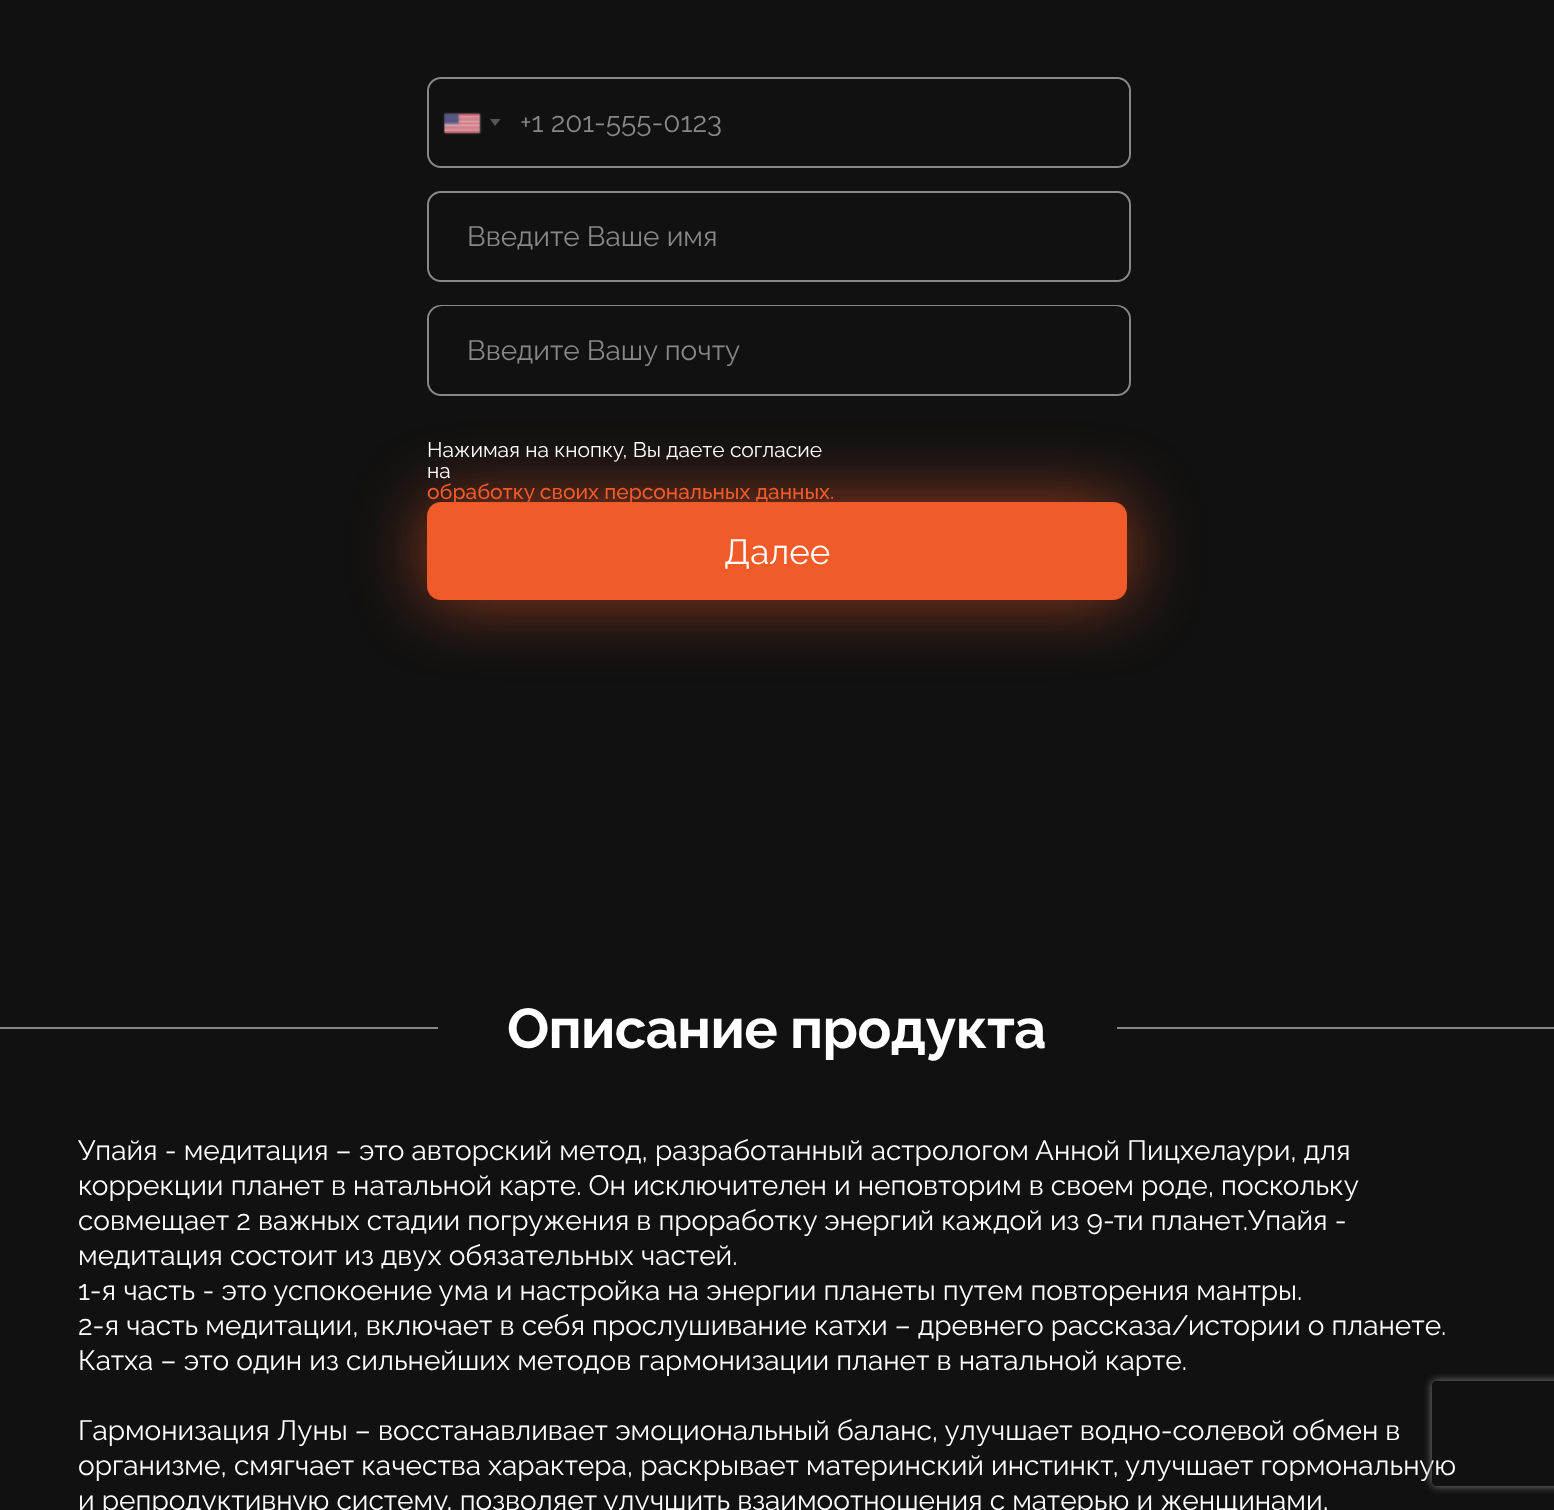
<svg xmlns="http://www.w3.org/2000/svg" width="1554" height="1510">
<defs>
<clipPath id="clip1"><path d="M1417 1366h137v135h-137zm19 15h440c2 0 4 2 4 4v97c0 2-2 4-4 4h-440c-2 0-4-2-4-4v-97c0-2 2-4 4-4z" clip-rule="evenodd"/></clipPath>
</defs>
<rect width="100%" height="100%" fill="#111"/>
<rect x="428" y="78" width="702" height="89" rx="13" fill="none" stroke="#888" stroke-width="2"/>
<rect x="429" y="79" width="700" height="87" rx="14" fill="#111"/>
<rect x="445" y="114" width="35" height="19" fill="#888" filter="blur(1px)"/>
<image x="444" y="113" width="36" height="20" href="media/1.png"/>
<path d="M490 119h10.5l-5.5 7z" fill="#555"/>
<text x="520" y="132" style="font-family:Raleway;font-size:28px;fill:#888">+1 201-555-0123</text>
<rect x="428" y="192" width="702" height="89" rx="13" fill="none" stroke="#888" stroke-width="2"/>
<rect x="429" y="193" width="700" height="87" rx="14" fill="#111"/>
<text x="467" y="246" style="font-family:Raleway;font-size:28px;fill:#888">Введите Ваше имя</text>
<rect x="428" y="306" width="702" height="89" rx="13" fill="none" stroke="#888" stroke-width="2"/>
<rect x="429" y="306" width="700" height="88" rx="14" fill="#111"/>
<text x="467" y="360" style="font-family:Raleway;font-size:28px;fill:#888">Введите Вашу почту</text>
<rect x="427" y="502" width="700" height="98" rx="14" fill="#f15a2999" filter="blur(35px)"/>
<rect x="427" y="502" width="700" height="98" rx="14" fill="#f15a29"/>
<text x="724" y="564" style="font-family:Raleway;font-size:35px;fill:#fff">Далее</text>
<text x="427" y="457" style="font-family:Raleway;font-size:21px;fill:#fff">Нажимая на кнопку, Вы даете согласие</text>
<text x="427" y="478" style="font-family:Raleway;font-size:21px;fill:#fff">на</text>
<text x="427" y="499" style="font-family:Raleway;font-size:21px;font-weight:500;fill:#f15a29">обработку своих персональных данных.</text>
<rect y="1027" width="1554" height="2" fill="#888"/>
<rect x="438" y="1027" width="679" height="2" fill="#111"/>
<text x="507" y="1048" style="font-family:Raleway;font-size:56px;font-weight:bold;letter-spacing:-0.6px;fill:#fff">Описание продукта</text>
<text x="78" y="1160" style="font-family:Raleway;font-size:28px;fill:#fff">Упайя - медитация – это авторский метод, разработанный астрологом Анной Пицхелаури, для</text>
<text x="78" y="1195" style="font-family:Raleway;font-size:28px;fill:#fff">коррекции планет в натальной карте. Он исключителен и неповторим в своем роде, поскольку</text>
<text x="78" y="1230" style="font-family:Raleway;font-size:28px;fill:#fff">совмещает 2 важных стадии погружения в проработку энергий каждой из 9-ти планет.Упайя -</text>
<text x="78" y="1265" style="font-family:Raleway;font-size:28px;fill:#fff">медитация состоит из двух обязательных частей.</text>
<text x="78" y="1300" style="font-family:Raleway;font-size:28px;fill:#fff">1-я часть - это успокоение ума и настройка на энергии планеты путем повторения мантры.</text>
<text x="78" y="1335" style="font-family:Raleway;font-size:28px;fill:#fff">2-я часть медитации, включает в себя прослушивание катхи – древнего рассказа/истории о планете.</text>
<text x="78" y="1370" style="font-family:Raleway;font-size:28px;fill:#fff">Катха – это один из сильнейших методов гармонизации планет в натальной карте.</text>
<text x="78" y="1440" style="font-family:Raleway;font-size:28px;fill:#fff">Гармонизация Луны – восстанавливает эмоциональный баланс, улучшает водно-солевой обмен в</text>
<text x="78" y="1475" style="font-family:Raleway;font-size:28px;fill:#fff">организме, смягчает качества характера, раскрывает материнский инстинкт, улучшает гормональную</text>
<text x="78" y="1510" style="font-family:Raleway;font-size:28px;fill:#fff">и репродуктивную систему, позволяет улучшить взаимоотношения с матерью и женщинами,</text>
<g clip-path="url(#clip1)">
<rect x="1432" y="1381" width="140" height="105" rx="4" fill="#808080" filter="blur(4.5px)"/>
</g>
</svg>
